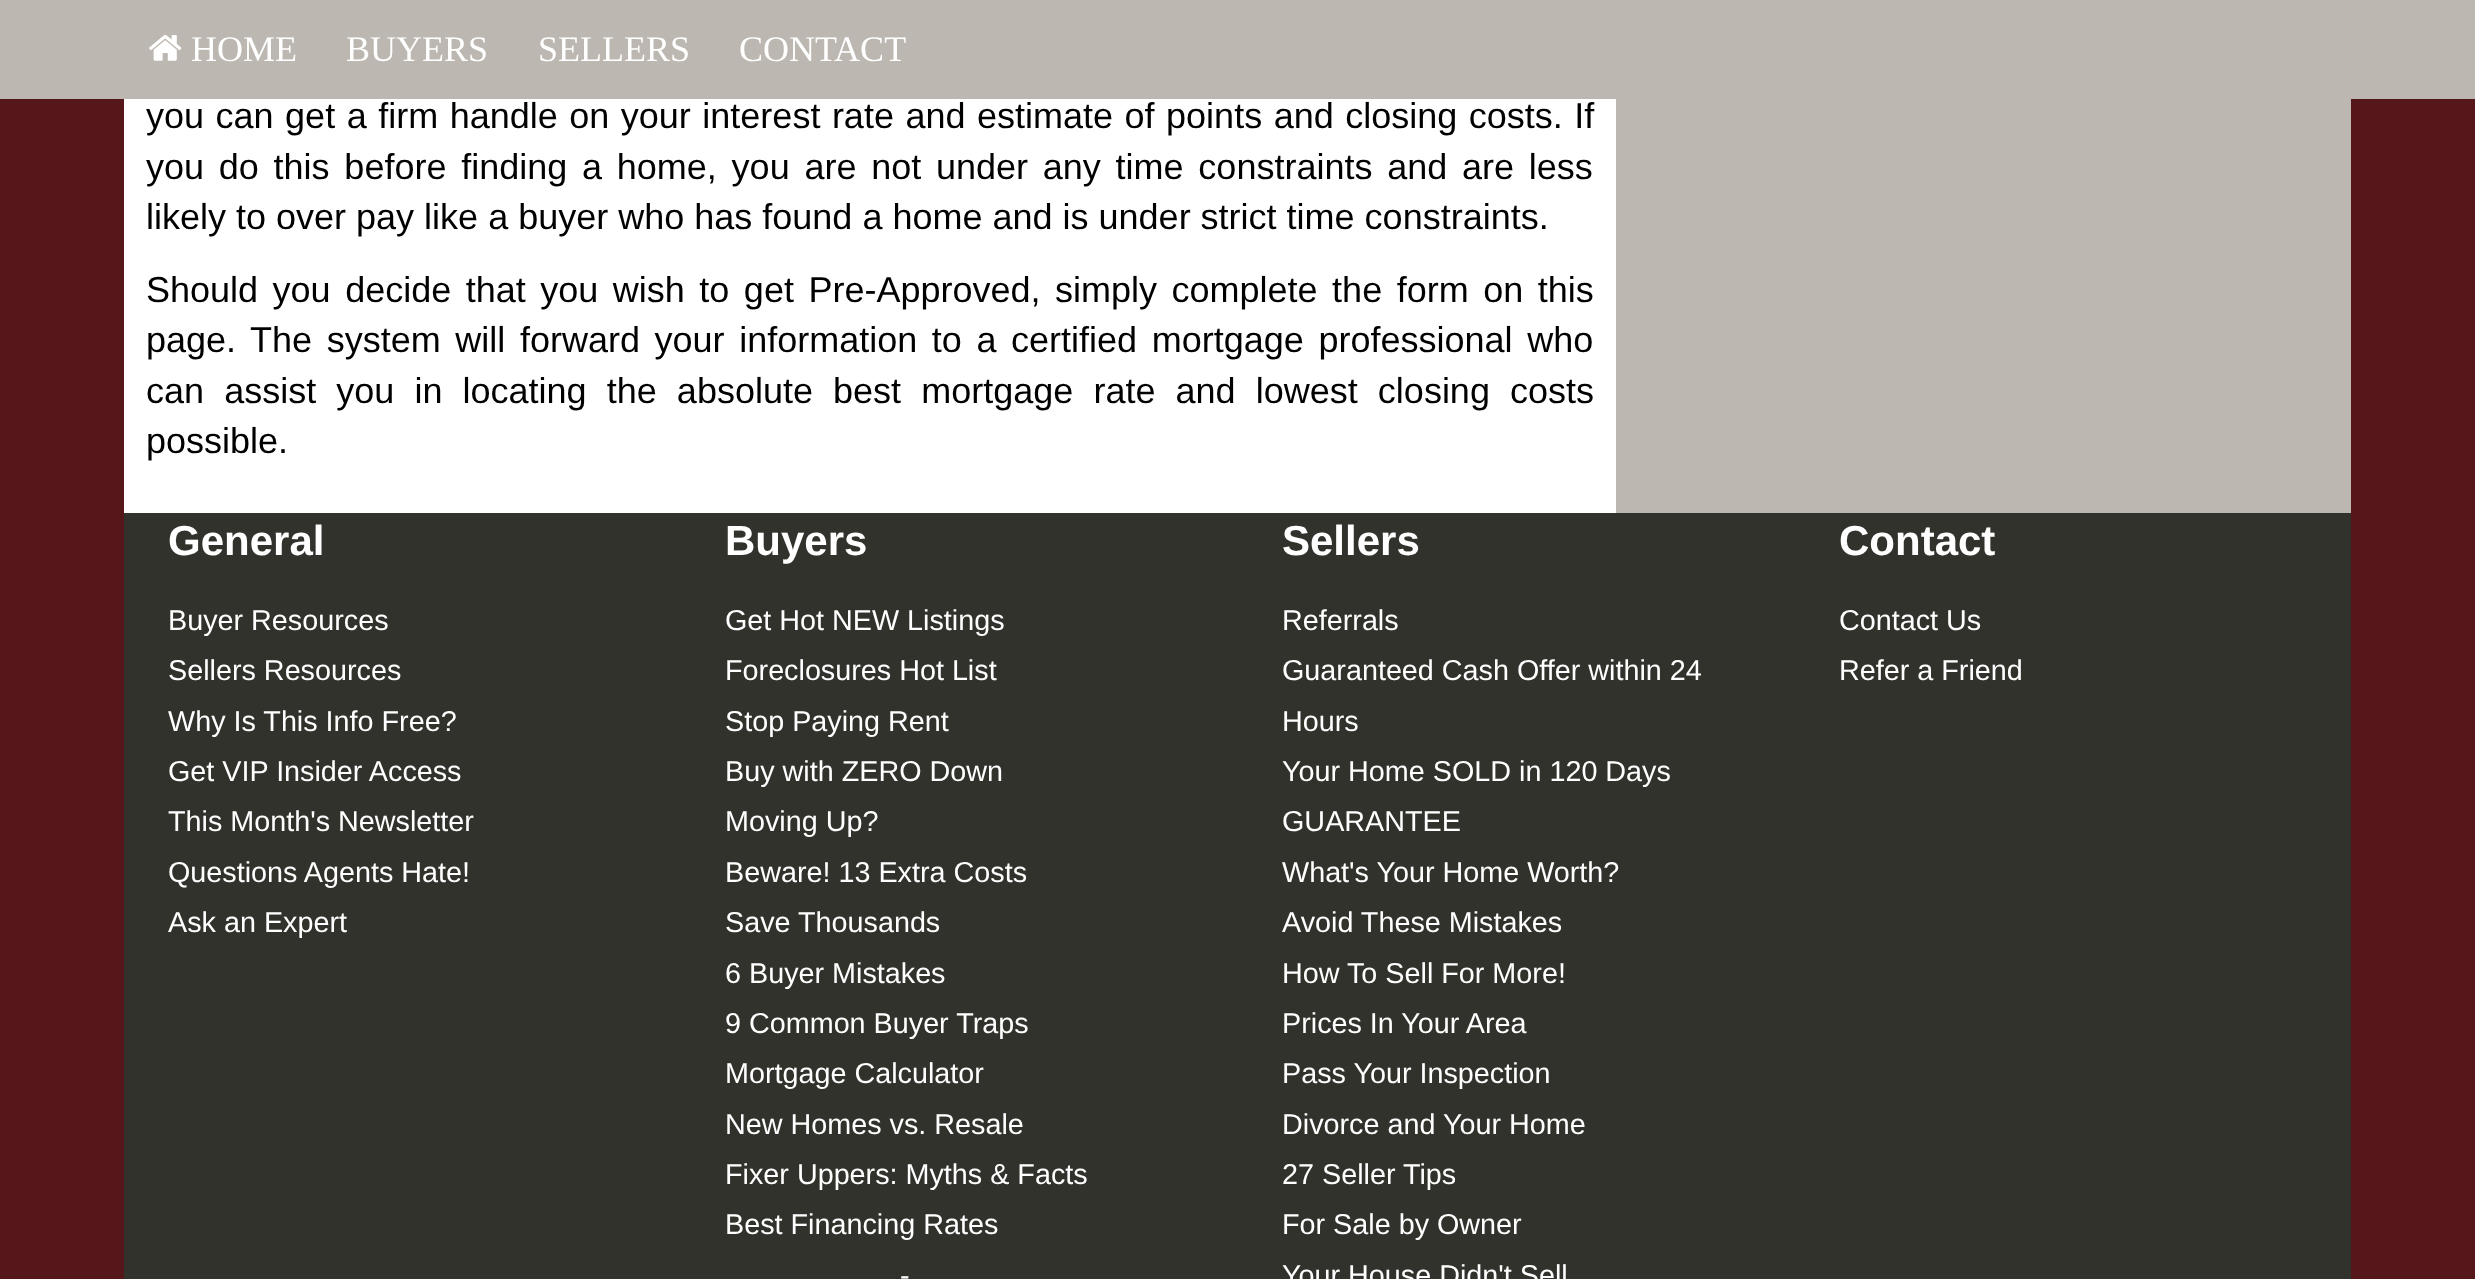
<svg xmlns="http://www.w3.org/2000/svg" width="2475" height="1279">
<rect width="100%" height="100%" fill="#55171a"/>
<rect width="2475" height="99" fill="#bcb7b0"/>
<image x="149" y="35" width="33" height="26" href="media/1.png"/>
<text x="191" y="61" style="font-family:Liberation Serif;font-size:36px;fill:#fff">HOME</text>
<text x="346" y="61" style="font-family:Liberation Serif;font-size:36px;fill:#fff">BUYERS</text>
<text x="538" y="61" style="font-family:Liberation Serif;font-size:36px;fill:#fff">SELLERS</text>
<text x="739" y="61" style="font-family:Liberation Serif;font-size:36px;fill:#fff">CONTACT</text>
<rect x="124" y="99" width="1492" height="414" fill="#fff"/>
<text x="146" y="128" word-spacing="1.5" style="font-family:Liberation Sans;font-size:36px;fill:#000">you can get a firm handle on your interest rate and estimate of points and closing costs. If</text>
<text x="146" y="179" word-spacing="4.75" style="font-family:Liberation Sans;font-size:36px;fill:#000">you do this before finding a home, you are not under any time constraints and are less</text>
<text x="146" y="229" style="font-family:Liberation Sans;font-size:36px;fill:#000">likely to over pay like a buyer who has found a home and is under strict time constraints.</text>
<text x="146" y="302" word-spacing="4.5" style="font-family:Liberation Sans;font-size:36px;fill:#000">Should you decide that you wish to get Pre-Approved, simply complete the form on this</text>
<text x="146" y="352" word-spacing="4.6" style="font-family:Liberation Sans;font-size:36px;fill:#000">page. The system will forward your information to a certified mortgage professional who</text>
<text x="146" y="403" word-spacing="10.1" style="font-family:Liberation Sans;font-size:36px;fill:#000">can assist you in locating the absolute best mortgage rate and lowest closing costs</text>
<text x="146" y="453" style="font-family:Liberation Sans;font-size:36px;fill:#000">possible.</text>
<rect x="1616" y="99" width="735" height="414" fill="#bcb7b0"/>
<rect x="124" y="513" width="2227" height="766" fill="#32322d"/>
<text x="168" y="555" style="font-family:Liberation Sans;font-size:42px;font-weight:bold;fill:#fff">General</text>
<text x="168" y="630" style="font-family:Liberation Sans;font-size:28.75px;fill:#fff">Buyer Resources</text>
<text x="168" y="680" style="font-family:Liberation Sans;font-size:28.75px;fill:#fff">Sellers Resources</text>
<text x="168" y="731" style="font-family:Liberation Sans;font-size:28.75px;fill:#fff">Why Is This Info Free?</text>
<text x="168" y="781" style="font-family:Liberation Sans;font-size:28.75px;fill:#fff">Get VIP Insider Access</text>
<text x="168" y="831" style="font-family:Liberation Sans;font-size:28.75px;fill:#fff">This Month's Newsletter</text>
<text x="168" y="882" style="font-family:Liberation Sans;font-size:28.75px;fill:#fff">Questions Agents Hate!</text>
<text x="168" y="932" style="font-family:Liberation Sans;font-size:28.75px;fill:#fff">Ask an Expert</text>
<text x="725" y="555" style="font-family:Liberation Sans;font-size:42px;font-weight:bold;fill:#fff">Buyers</text>
<text x="725" y="630" style="font-family:Liberation Sans;font-size:28.75px;fill:#fff">Get Hot NEW Listings</text>
<text x="725" y="680" style="font-family:Liberation Sans;font-size:28.75px;fill:#fff">Foreclosures Hot List</text>
<text x="725" y="731" style="font-family:Liberation Sans;font-size:28.75px;fill:#fff">Stop Paying Rent</text>
<text x="725" y="781" style="font-family:Liberation Sans;font-size:28.75px;fill:#fff">Buy with ZERO Down</text>
<text x="725" y="831" style="font-family:Liberation Sans;font-size:28.75px;fill:#fff">Moving Up?</text>
<text x="725" y="882" style="font-family:Liberation Sans;font-size:28.75px;fill:#fff">Beware! 13 Extra Costs</text>
<text x="725" y="932" style="font-family:Liberation Sans;font-size:28.75px;fill:#fff">Save Thousands</text>
<text x="725" y="983" style="font-family:Liberation Sans;font-size:28.75px;fill:#fff">6 Buyer Mistakes</text>
<text x="725" y="1033" style="font-family:Liberation Sans;font-size:28.75px;fill:#fff">9 Common Buyer Traps</text>
<text x="725" y="1083" style="font-family:Liberation Sans;font-size:28.75px;fill:#fff">Mortgage Calculator</text>
<text x="725" y="1134" style="font-family:Liberation Sans;font-size:28.75px;fill:#fff">New Homes vs. Resale</text>
<text x="725" y="1184" style="font-family:Liberation Sans;font-size:28.75px;fill:#fff">Fixer Uppers: Myths &amp; Facts</text>
<text x="725" y="1234" style="font-family:Liberation Sans;font-size:28.75px;fill:#fff">Best Financing Rates</text>
<text x="900" y="1285" style="font-family:Liberation Sans;font-size:28.75px;fill:#fff">-</text>
<text x="1282" y="555" style="font-family:Liberation Sans;font-size:42px;font-weight:bold;fill:#fff">Sellers</text>
<text x="1282" y="630" style="font-family:Liberation Sans;font-size:28.75px;fill:#fff">Referrals</text>
<text x="1282" y="680" style="font-family:Liberation Sans;font-size:28.75px;fill:#fff">Guaranteed Cash Offer within 24</text>
<text x="1282" y="731" style="font-family:Liberation Sans;font-size:28.75px;fill:#fff">Hours</text>
<text x="1282" y="781" style="font-family:Liberation Sans;font-size:28.75px;fill:#fff">Your Home SOLD in 120 Days</text>
<text x="1282" y="831" style="font-family:Liberation Sans;font-size:28.75px;fill:#fff">GUARANTEE</text>
<text x="1282" y="882" style="font-family:Liberation Sans;font-size:28.75px;fill:#fff">What's Your Home Worth?</text>
<text x="1282" y="932" style="font-family:Liberation Sans;font-size:28.75px;fill:#fff">Avoid These Mistakes</text>
<text x="1282" y="983" style="font-family:Liberation Sans;font-size:28.75px;fill:#fff">How To Sell For More!</text>
<text x="1282" y="1033" style="font-family:Liberation Sans;font-size:28.75px;fill:#fff">Prices In Your Area</text>
<text x="1282" y="1083" style="font-family:Liberation Sans;font-size:28.75px;fill:#fff">Pass Your Inspection</text>
<text x="1282" y="1134" style="font-family:Liberation Sans;font-size:28.75px;fill:#fff">Divorce and Your Home</text>
<text x="1282" y="1184" style="font-family:Liberation Sans;font-size:28.75px;fill:#fff">27 Seller Tips</text>
<text x="1282" y="1234" style="font-family:Liberation Sans;font-size:28.75px;fill:#fff">For Sale by Owner</text>
<text x="1282" y="1285" style="font-family:Liberation Sans;font-size:28.75px;fill:#fff">Your House Didn't Sell</text>
<text x="1839" y="555" style="font-family:Liberation Sans;font-size:42px;font-weight:bold;fill:#fff">Contact</text>
<text x="1839" y="630" style="font-family:Liberation Sans;font-size:28.75px;fill:#fff">Contact Us</text>
<text x="1839" y="680" style="font-family:Liberation Sans;font-size:28.75px;fill:#fff">Refer a Friend</text>
</svg>
